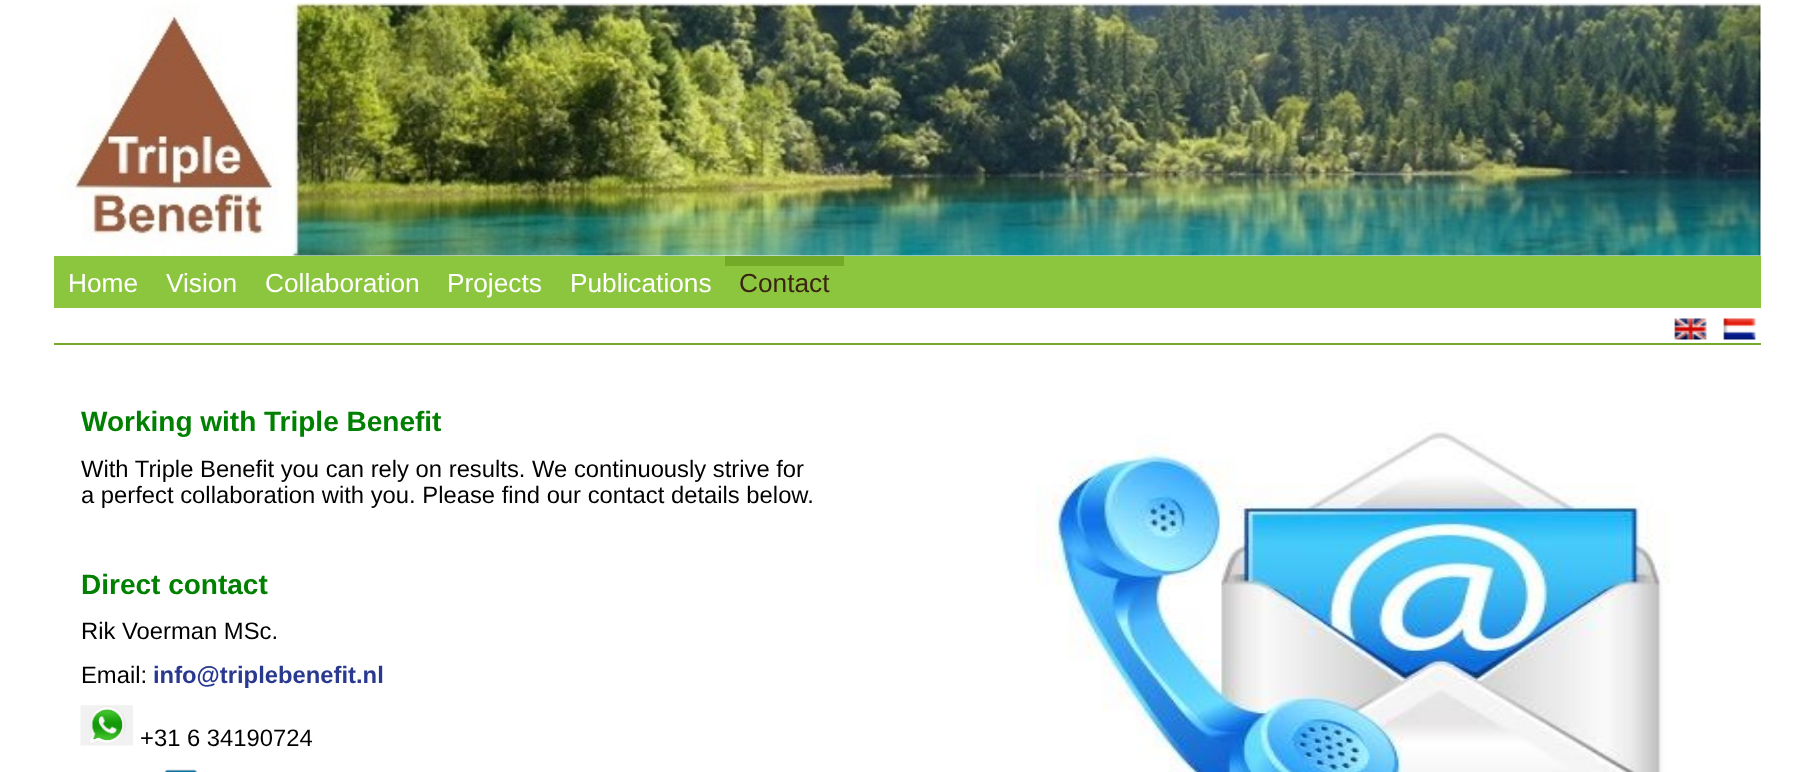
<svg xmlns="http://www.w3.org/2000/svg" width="1814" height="772">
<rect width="100%" height="100%" fill="#fff"/>
<image x="60" y="3" width="1701" height="253" href="media/1.png"/>
<rect x="54" y="256" width="1707" height="52" fill="#8cc63f"/>
<text x="68" y="292" style="font-family:Liberation Sans;font-size:26.25px;fill:#fff">Home</text>
<text x="166" y="292" style="font-family:Liberation Sans;font-size:26.25px;fill:#fff">Vision</text>
<text x="265" y="292" style="font-family:Liberation Sans;font-size:26.25px;fill:#fff">Collaboration</text>
<text x="447" y="292" style="font-family:Liberation Sans;font-size:26.25px;fill:#fff">Projects</text>
<text x="570" y="292" style="font-family:Liberation Sans;font-size:26.25px;fill:#fff">Publications</text>
<rect x="725" y="256" width="119" height="10" fill="#73ab29"/>
<text x="739" y="292" style="font-family:Liberation Sans;font-size:26.25px;fill:#3b2313">Contact</text>
<image x="1674" y="318" width="33" height="22" href="media/2.png"/>
<image x="1723" y="318" width="33" height="22" href="media/3.png"/>
<rect x="54" y="343" width="1707" height="2" fill="#73ab29"/>
<text x="81" y="431" style="font-family:Liberation Sans;font-size:28px;font-weight:bold;fill:#008000">Working with Triple Benefit</text>
<text x="81" y="477" style="font-family:Liberation Sans;font-size:23.8px;fill:#000">With Triple Benefit you can rely on results. We continuously strive for</text>
<text x="81" y="503" style="font-family:Liberation Sans;font-size:23.8px;fill:#000">a perfect collaboration with you. Please find our contact details below.</text>
<text x="81" y="594" style="font-family:Liberation Sans;font-size:28px;font-weight:bold;fill:#008000">Direct contact</text>
<text x="81" y="639" style="font-family:Liberation Sans;font-size:23.8px;fill:#000">Rik Voerman MSc.</text>
<text x="81" y="683" style="font-family:Liberation Sans;font-size:23.8px;fill:#000">Email:</text>
<text x="153" y="683" style="font-family:Liberation Sans;font-size:23.8px;font-weight:bold;fill:#2a3990">info@triplebenefit.nl</text>
<image x="80" y="705" width="53" height="41" href="media/4.png"/>
<text x="140" y="746" style="font-family:Liberation Sans;font-size:23.8px;fill:#000">+31 6 34190724</text>
<image x="164" y="769" width="33" height="3" href="media/5.png"/>
<image x="1036" y="423" width="634" height="349" href="media/6.png"/>
</svg>
